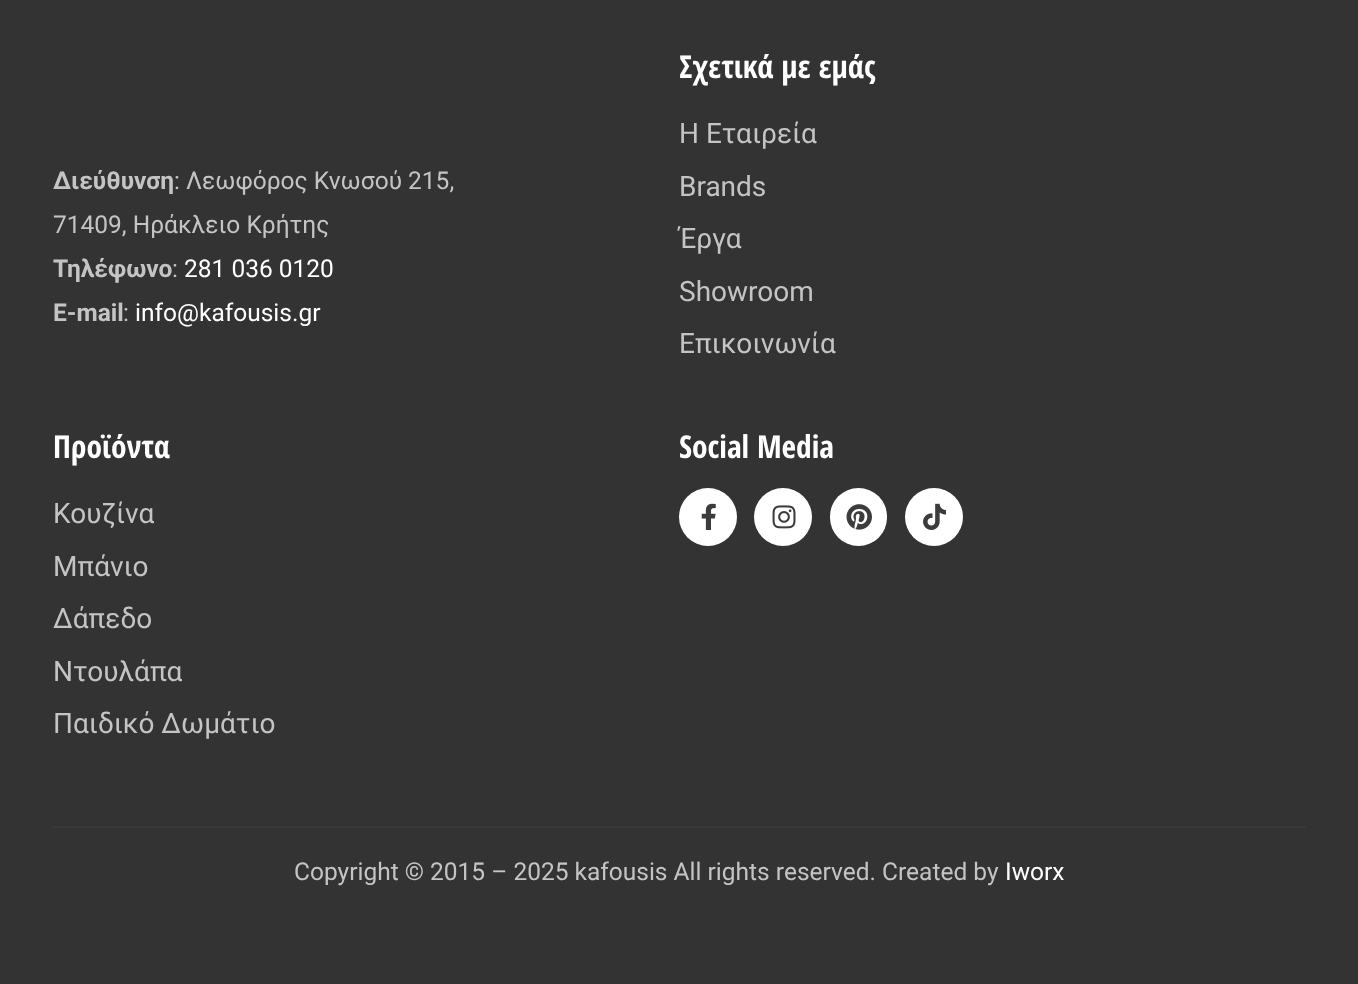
<svg xmlns="http://www.w3.org/2000/svg" width="1358" height="984">
<rect width="100%" height="100%" fill="#333"/>
<text x="53" y="189" style="font-family:Roboto;font-size:24.5px;font-weight:bold;fill:#c4c4c4">Διεύθυνση</text>
<text x="174" y="189" style="font-family:Roboto;font-size:24.5px;fill:#c4c4c4">: Λεωφόρος Κνωσού 215,</text>
<text x="53" y="233" style="font-family:Roboto;font-size:24.5px;fill:#c4c4c4">71409, Ηράκλειο Κρήτης</text>
<text x="53" y="277" style="font-family:Roboto;font-size:24.5px;font-weight:bold;fill:#c4c4c4">Τηλέφωνο</text>
<text x="172" y="277" style="font-family:Roboto;font-size:24.5px;fill:#c4c4c4">:</text>
<text x="184" y="277" style="font-family:Roboto;font-size:24.5px;fill:#fff">281 036 0120</text>
<text x="53" y="321" style="font-family:Roboto;font-size:24.5px;font-weight:bold;fill:#c4c4c4">E-mail</text>
<text x="123" y="321" style="font-family:Roboto;font-size:24.5px;fill:#c4c4c4">:</text>
<text x="135" y="321" style="font-family:Roboto;font-size:24.5px;fill:#fff">info@kafousis.gr</text>
<text x="679" y="78" style="font-family:Open Sans Condensed;font-size:31.5px;font-weight:bold;fill:#fff">Σχετικά με εμάς</text>
<text x="679" y="143" style="font-family:Roboto;font-size:28px;fill:#c4c4c4">Η Εταιρεία</text>
<text x="679" y="196" style="font-family:Roboto;font-size:28px;fill:#c4c4c4">Brands</text>
<text x="679" y="248" style="font-family:Roboto;font-size:28px;fill:#c4c4c4">Έργα</text>
<text x="679" y="301" style="font-family:Roboto;font-size:28px;fill:#c4c4c4">Showroom</text>
<text x="679" y="353" style="font-family:Roboto;font-size:28px;fill:#c4c4c4">Επικοινωνία</text>
<text x="53" y="458" style="font-family:Open Sans Condensed;font-size:31.5px;font-weight:bold;fill:#fff">Προϊόντα</text>
<text x="53" y="523" style="font-family:Roboto;font-size:28px;fill:#c4c4c4">Κουζίνα</text>
<text x="53" y="576" style="font-family:Roboto;font-size:28px;fill:#c4c4c4">Μπάνιο</text>
<text x="53" y="628" style="font-family:Roboto;font-size:28px;fill:#c4c4c4">Δάπεδο</text>
<text x="53" y="681" style="font-family:Roboto;font-size:28px;fill:#c4c4c4">Ντουλάπα</text>
<text x="53" y="733" style="font-family:Roboto;font-size:28px;fill:#c4c4c4">Παιδικό Δωμάτιο</text>
<text x="679" y="458" style="font-family:Open Sans Condensed;font-size:31.5px;font-weight:bold;fill:#fff">Social Media</text>
<circle cx="708" cy="517" r="29" fill="#fff"/>
<image x="701" y="503" width="15" height="27" href="media/1.png"/>
<circle cx="783" cy="517" r="29" fill="#fff"/>
<image x="772" y="505" width="24" height="24" href="media/2.png"/>
<rect x="830" y="488" width="57" height="58" rx="28.5" fill="#fff"/>
<image x="846" y="504" width="26" height="26" href="media/3.png"/>
<circle cx="934" cy="517" r="29" fill="#fff"/>
<image x="923" y="503" width="23" height="27" href="media/4.png"/>
<rect x="53" y="826" width="1253" height="2" fill="#393939"/>
<text x="294" y="880" style="font-family:Roboto;font-size:24.5px;fill:#c4c4c4">Copyright © 2015 – 2025 kafousis All rights reserved. Created by</text>
<text x="1005" y="880" style="font-family:Roboto;font-size:24.5px;fill:#fff">Iworx</text>
</svg>
